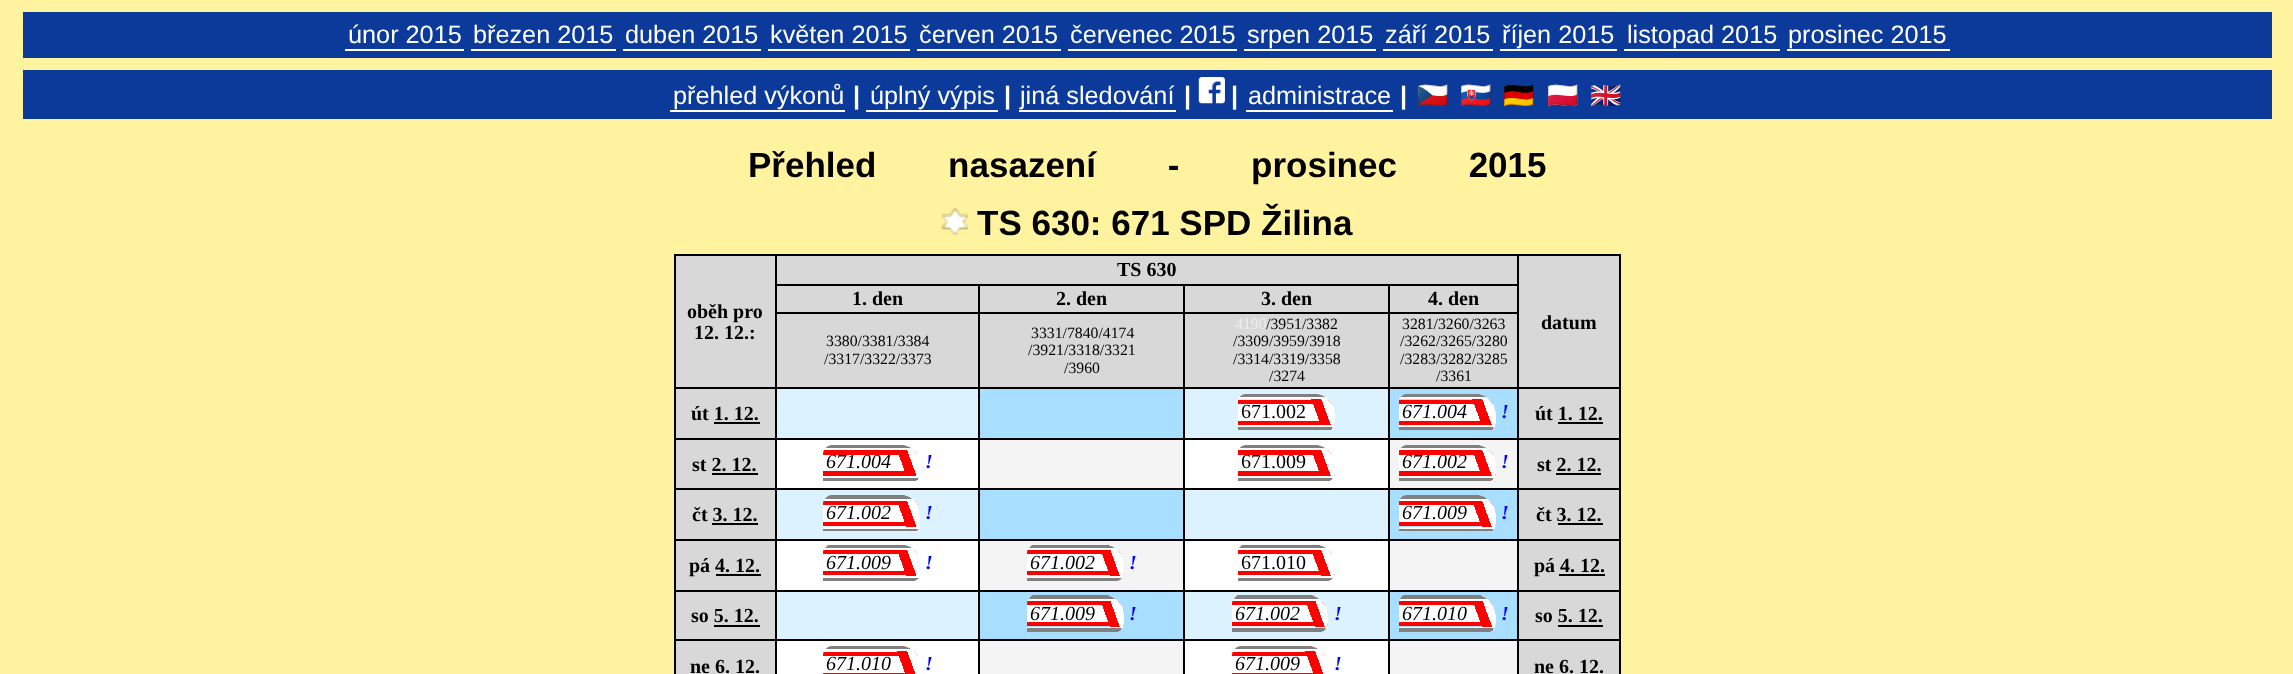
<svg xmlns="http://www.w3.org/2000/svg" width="2293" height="674">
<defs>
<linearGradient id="g1" gradientUnits="userSpaceOnUse" x1="1286" y1="394" x2="1286" y2="431"><stop offset="0" stop-color="#ddf2ff"/><stop offset="0.15" stop-color="#ddf2ff"/><stop offset="0.15" stop-color="#f00"/><stop offset="0.28" stop-color="#f00"/><stop offset="0.28" stop-color="#fff"/><stop offset="0.72" stop-color="#fff"/><stop offset="0.72" stop-color="#f00"/><stop offset="0.85" stop-color="#f00"/><stop offset="0.85" stop-color="#ddf2ff"/><stop offset="1" stop-color="#ddf2ff"/></linearGradient>
<linearGradient id="g2" gradientUnits="userSpaceOnUse" x1="1237" y1="430" x2="1335" y2="394"><stop offset="0" stop-color="#000" stop-opacity="0"/><stop offset="0.77" stop-color="#f00" stop-opacity="0"/><stop offset="0.77" stop-color="#f00"/><stop offset="0.86" stop-color="#f00"/><stop offset="0.86" stop-color="#fff"/><stop offset="1" stop-color="#fff"/></linearGradient>
<linearGradient id="g3" gradientUnits="userSpaceOnUse" x1="1447" y1="394" x2="1447" y2="431"><stop offset="0" stop-color="#a8deff"/><stop offset="0.15" stop-color="#a8deff"/><stop offset="0.15" stop-color="#f00"/><stop offset="0.28" stop-color="#f00"/><stop offset="0.28" stop-color="#fff"/><stop offset="0.72" stop-color="#fff"/><stop offset="0.72" stop-color="#f00"/><stop offset="0.85" stop-color="#f00"/><stop offset="0.85" stop-color="#a8deff"/><stop offset="1" stop-color="#a8deff"/></linearGradient>
<linearGradient id="g4" gradientUnits="userSpaceOnUse" x1="1398" y1="430" x2="1496" y2="394"><stop offset="0" stop-color="#000" stop-opacity="0"/><stop offset="0.77" stop-color="#f00" stop-opacity="0"/><stop offset="0.77" stop-color="#f00"/><stop offset="0.86" stop-color="#f00"/><stop offset="0.86" stop-color="#fff"/><stop offset="1" stop-color="#fff"/></linearGradient>
<linearGradient id="g5" gradientUnits="userSpaceOnUse" x1="872" y1="445" x2="872" y2="481"><stop offset="0" stop-color="#fff"/><stop offset="0.15" stop-color="#fff"/><stop offset="0.15" stop-color="#f00"/><stop offset="0.28" stop-color="#f00"/><stop offset="0.28" stop-color="#fff"/><stop offset="0.72" stop-color="#fff"/><stop offset="0.72" stop-color="#f00"/><stop offset="0.85" stop-color="#f00"/><stop offset="0.85" stop-color="#fff"/><stop offset="1" stop-color="#fff"/></linearGradient>
<linearGradient id="g6" gradientUnits="userSpaceOnUse" x1="822" y1="481" x2="921" y2="445"><stop offset="0" stop-color="#000" stop-opacity="0"/><stop offset="0.77" stop-color="#f00" stop-opacity="0"/><stop offset="0.77" stop-color="#f00"/><stop offset="0.86" stop-color="#f00"/><stop offset="0.86" stop-color="#fff"/><stop offset="1" stop-color="#fff"/></linearGradient>
<linearGradient id="g7" gradientUnits="userSpaceOnUse" x1="1286" y1="445" x2="1286" y2="481"><stop offset="0" stop-color="#fff"/><stop offset="0.15" stop-color="#fff"/><stop offset="0.15" stop-color="#f00"/><stop offset="0.28" stop-color="#f00"/><stop offset="0.28" stop-color="#fff"/><stop offset="0.72" stop-color="#fff"/><stop offset="0.72" stop-color="#f00"/><stop offset="0.85" stop-color="#f00"/><stop offset="0.85" stop-color="#fff"/><stop offset="1" stop-color="#fff"/></linearGradient>
<linearGradient id="g8" gradientUnits="userSpaceOnUse" x1="1237" y1="481" x2="1335" y2="445"><stop offset="0" stop-color="#000" stop-opacity="0"/><stop offset="0.77" stop-color="#f00" stop-opacity="0"/><stop offset="0.77" stop-color="#f00"/><stop offset="0.86" stop-color="#f00"/><stop offset="0.86" stop-color="#fff"/><stop offset="1" stop-color="#fff"/></linearGradient>
<linearGradient id="g9" gradientUnits="userSpaceOnUse" x1="1447" y1="445" x2="1447" y2="481"><stop offset="0" stop-color="#f4f4f4"/><stop offset="0.15" stop-color="#f4f4f4"/><stop offset="0.15" stop-color="#f00"/><stop offset="0.28" stop-color="#f00"/><stop offset="0.28" stop-color="#fff"/><stop offset="0.72" stop-color="#fff"/><stop offset="0.72" stop-color="#f00"/><stop offset="0.85" stop-color="#f00"/><stop offset="0.85" stop-color="#f4f4f4"/><stop offset="1" stop-color="#f4f4f4"/></linearGradient>
<linearGradient id="g10" gradientUnits="userSpaceOnUse" x1="1398" y1="481" x2="1496" y2="445"><stop offset="0" stop-color="#000" stop-opacity="0"/><stop offset="0.77" stop-color="#f00" stop-opacity="0"/><stop offset="0.77" stop-color="#f00"/><stop offset="0.86" stop-color="#f00"/><stop offset="0.86" stop-color="#fff"/><stop offset="1" stop-color="#fff"/></linearGradient>
<linearGradient id="g11" gradientUnits="userSpaceOnUse" x1="872" y1="495" x2="872" y2="532"><stop offset="0" stop-color="#ddf2ff"/><stop offset="0.15" stop-color="#ddf2ff"/><stop offset="0.15" stop-color="#f00"/><stop offset="0.28" stop-color="#f00"/><stop offset="0.28" stop-color="#fff"/><stop offset="0.72" stop-color="#fff"/><stop offset="0.72" stop-color="#f00"/><stop offset="0.85" stop-color="#f00"/><stop offset="0.85" stop-color="#ddf2ff"/><stop offset="1" stop-color="#ddf2ff"/></linearGradient>
<linearGradient id="g12" gradientUnits="userSpaceOnUse" x1="822" y1="532" x2="921" y2="496"><stop offset="0" stop-color="#000" stop-opacity="0"/><stop offset="0.77" stop-color="#f00" stop-opacity="0"/><stop offset="0.77" stop-color="#f00"/><stop offset="0.86" stop-color="#f00"/><stop offset="0.86" stop-color="#fff"/><stop offset="1" stop-color="#fff"/></linearGradient>
<linearGradient id="g13" gradientUnits="userSpaceOnUse" x1="1447" y1="495" x2="1447" y2="532"><stop offset="0" stop-color="#a8deff"/><stop offset="0.15" stop-color="#a8deff"/><stop offset="0.15" stop-color="#f00"/><stop offset="0.28" stop-color="#f00"/><stop offset="0.28" stop-color="#fff"/><stop offset="0.72" stop-color="#fff"/><stop offset="0.72" stop-color="#f00"/><stop offset="0.85" stop-color="#f00"/><stop offset="0.85" stop-color="#a8deff"/><stop offset="1" stop-color="#a8deff"/></linearGradient>
<linearGradient id="g14" gradientUnits="userSpaceOnUse" x1="1398" y1="532" x2="1496" y2="496"><stop offset="0" stop-color="#000" stop-opacity="0"/><stop offset="0.77" stop-color="#f00" stop-opacity="0"/><stop offset="0.77" stop-color="#f00"/><stop offset="0.86" stop-color="#f00"/><stop offset="0.86" stop-color="#fff"/><stop offset="1" stop-color="#fff"/></linearGradient>
<linearGradient id="g15" gradientUnits="userSpaceOnUse" x1="872" y1="544" x2="872" y2="581"><stop offset="0" stop-color="#fff"/><stop offset="0.15" stop-color="#fff"/><stop offset="0.15" stop-color="#f00"/><stop offset="0.28" stop-color="#f00"/><stop offset="0.28" stop-color="#fff"/><stop offset="0.72" stop-color="#fff"/><stop offset="0.72" stop-color="#f00"/><stop offset="0.85" stop-color="#f00"/><stop offset="0.85" stop-color="#fff"/><stop offset="1" stop-color="#fff"/></linearGradient>
<linearGradient id="g16" gradientUnits="userSpaceOnUse" x1="822" y1="581" x2="921" y2="545"><stop offset="0" stop-color="#000" stop-opacity="0"/><stop offset="0.77" stop-color="#f00" stop-opacity="0"/><stop offset="0.77" stop-color="#f00"/><stop offset="0.86" stop-color="#f00"/><stop offset="0.86" stop-color="#fff"/><stop offset="1" stop-color="#fff"/></linearGradient>
<linearGradient id="g17" gradientUnits="userSpaceOnUse" x1="1075" y1="544" x2="1075" y2="581"><stop offset="0" stop-color="#f4f4f4"/><stop offset="0.15" stop-color="#f4f4f4"/><stop offset="0.15" stop-color="#f00"/><stop offset="0.28" stop-color="#f00"/><stop offset="0.28" stop-color="#fff"/><stop offset="0.72" stop-color="#fff"/><stop offset="0.72" stop-color="#f00"/><stop offset="0.85" stop-color="#f00"/><stop offset="0.85" stop-color="#f4f4f4"/><stop offset="1" stop-color="#f4f4f4"/></linearGradient>
<linearGradient id="g18" gradientUnits="userSpaceOnUse" x1="1027" y1="580" x2="1124" y2="545"><stop offset="0" stop-color="#000" stop-opacity="0"/><stop offset="0.77" stop-color="#f00" stop-opacity="0"/><stop offset="0.77" stop-color="#f00"/><stop offset="0.86" stop-color="#f00"/><stop offset="0.86" stop-color="#fff"/><stop offset="1" stop-color="#fff"/></linearGradient>
<linearGradient id="g19" gradientUnits="userSpaceOnUse" x1="1286" y1="544" x2="1286" y2="581"><stop offset="0" stop-color="#fff"/><stop offset="0.15" stop-color="#fff"/><stop offset="0.15" stop-color="#f00"/><stop offset="0.28" stop-color="#f00"/><stop offset="0.28" stop-color="#fff"/><stop offset="0.72" stop-color="#fff"/><stop offset="0.72" stop-color="#f00"/><stop offset="0.85" stop-color="#f00"/><stop offset="0.85" stop-color="#fff"/><stop offset="1" stop-color="#fff"/></linearGradient>
<linearGradient id="g20" gradientUnits="userSpaceOnUse" x1="1237" y1="581" x2="1335" y2="545"><stop offset="0" stop-color="#000" stop-opacity="0"/><stop offset="0.77" stop-color="#f00" stop-opacity="0"/><stop offset="0.77" stop-color="#f00"/><stop offset="0.86" stop-color="#f00"/><stop offset="0.86" stop-color="#fff"/><stop offset="1" stop-color="#fff"/></linearGradient>
<linearGradient id="g21" gradientUnits="userSpaceOnUse" x1="1075" y1="595" x2="1075" y2="632"><stop offset="0" stop-color="#a8deff"/><stop offset="0.15" stop-color="#a8deff"/><stop offset="0.15" stop-color="#f00"/><stop offset="0.28" stop-color="#f00"/><stop offset="0.28" stop-color="#fff"/><stop offset="0.72" stop-color="#fff"/><stop offset="0.72" stop-color="#f00"/><stop offset="0.85" stop-color="#f00"/><stop offset="0.85" stop-color="#a8deff"/><stop offset="1" stop-color="#a8deff"/></linearGradient>
<linearGradient id="g22" gradientUnits="userSpaceOnUse" x1="1027" y1="631" x2="1124" y2="596"><stop offset="0" stop-color="#000" stop-opacity="0"/><stop offset="0.77" stop-color="#f00" stop-opacity="0"/><stop offset="0.77" stop-color="#f00"/><stop offset="0.86" stop-color="#f00"/><stop offset="0.86" stop-color="#fff"/><stop offset="1" stop-color="#fff"/></linearGradient>
<linearGradient id="g23" gradientUnits="userSpaceOnUse" x1="1280" y1="595" x2="1280" y2="632"><stop offset="0" stop-color="#ddf2ff"/><stop offset="0.15" stop-color="#ddf2ff"/><stop offset="0.15" stop-color="#f00"/><stop offset="0.28" stop-color="#f00"/><stop offset="0.28" stop-color="#fff"/><stop offset="0.72" stop-color="#fff"/><stop offset="0.72" stop-color="#f00"/><stop offset="0.85" stop-color="#f00"/><stop offset="0.85" stop-color="#ddf2ff"/><stop offset="1" stop-color="#ddf2ff"/></linearGradient>
<linearGradient id="g24" gradientUnits="userSpaceOnUse" x1="1232" y1="631" x2="1329" y2="596"><stop offset="0" stop-color="#000" stop-opacity="0"/><stop offset="0.77" stop-color="#f00" stop-opacity="0"/><stop offset="0.77" stop-color="#f00"/><stop offset="0.86" stop-color="#f00"/><stop offset="0.86" stop-color="#fff"/><stop offset="1" stop-color="#fff"/></linearGradient>
<linearGradient id="g25" gradientUnits="userSpaceOnUse" x1="1447" y1="595" x2="1447" y2="632"><stop offset="0" stop-color="#a8deff"/><stop offset="0.15" stop-color="#a8deff"/><stop offset="0.15" stop-color="#f00"/><stop offset="0.28" stop-color="#f00"/><stop offset="0.28" stop-color="#fff"/><stop offset="0.72" stop-color="#fff"/><stop offset="0.72" stop-color="#f00"/><stop offset="0.85" stop-color="#f00"/><stop offset="0.85" stop-color="#a8deff"/><stop offset="1" stop-color="#a8deff"/></linearGradient>
<linearGradient id="g26" gradientUnits="userSpaceOnUse" x1="1398" y1="631" x2="1496" y2="595"><stop offset="0" stop-color="#000" stop-opacity="0"/><stop offset="0.77" stop-color="#f00" stop-opacity="0"/><stop offset="0.77" stop-color="#f00"/><stop offset="0.86" stop-color="#f00"/><stop offset="0.86" stop-color="#fff"/><stop offset="1" stop-color="#fff"/></linearGradient>
<linearGradient id="g27" gradientUnits="userSpaceOnUse" x1="872" y1="646" x2="872" y2="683"><stop offset="0" stop-color="#fff"/><stop offset="0.15" stop-color="#fff"/><stop offset="0.15" stop-color="#f00"/><stop offset="0.28" stop-color="#f00"/><stop offset="0.28" stop-color="#fff"/><stop offset="0.72" stop-color="#fff"/><stop offset="0.72" stop-color="#f00"/><stop offset="0.85" stop-color="#f00"/><stop offset="0.85" stop-color="#fff"/><stop offset="1" stop-color="#fff"/></linearGradient>
<linearGradient id="g28" gradientUnits="userSpaceOnUse" x1="822" y1="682" x2="921" y2="646"><stop offset="0" stop-color="#000" stop-opacity="0"/><stop offset="0.77" stop-color="#f00" stop-opacity="0"/><stop offset="0.77" stop-color="#f00"/><stop offset="0.86" stop-color="#f00"/><stop offset="0.86" stop-color="#fff"/><stop offset="1" stop-color="#fff"/></linearGradient>
<linearGradient id="g29" gradientUnits="userSpaceOnUse" x1="1280" y1="646" x2="1280" y2="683"><stop offset="0" stop-color="#fff"/><stop offset="0.15" stop-color="#fff"/><stop offset="0.15" stop-color="#f00"/><stop offset="0.28" stop-color="#f00"/><stop offset="0.28" stop-color="#fff"/><stop offset="0.72" stop-color="#fff"/><stop offset="0.72" stop-color="#f00"/><stop offset="0.85" stop-color="#f00"/><stop offset="0.85" stop-color="#fff"/><stop offset="1" stop-color="#fff"/></linearGradient>
<linearGradient id="g30" gradientUnits="userSpaceOnUse" x1="1232" y1="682" x2="1329" y2="647"><stop offset="0" stop-color="#000" stop-opacity="0"/><stop offset="0.77" stop-color="#f00" stop-opacity="0"/><stop offset="0.77" stop-color="#f00"/><stop offset="0.86" stop-color="#f00"/><stop offset="0.86" stop-color="#fff"/><stop offset="1" stop-color="#fff"/></linearGradient>
</defs>
<rect width="100%" height="100%" fill="#fff39f"/>
<rect x="23" y="12" width="2249" height="46" fill="#0c3a9a"/>
<rect x="345" y="49" width="119" height="2" fill="#fff"/>
<text x="348" y="43" style="font-family:Liberation Sans;font-size:25.25px;fill:#fff">únor 2015</text>
<rect x="471" y="49" width="145" height="2" fill="#fff"/>
<text x="473" y="43" style="font-family:Liberation Sans;font-size:25.25px;fill:#fff">březen 2015</text>
<rect x="623" y="49" width="138" height="2" fill="#fff"/>
<text x="625" y="43" style="font-family:Liberation Sans;font-size:25.25px;fill:#fff">duben 2015</text>
<rect x="768" y="49" width="142" height="2" fill="#fff"/>
<text x="770" y="43" style="font-family:Liberation Sans;font-size:25.25px;fill:#fff">květen 2015</text>
<rect x="917" y="49" width="144" height="2" fill="#fff"/>
<text x="919" y="43" style="font-family:Liberation Sans;font-size:25.25px;fill:#fff">červen 2015</text>
<rect x="1068" y="49" width="169" height="2" fill="#fff"/>
<text x="1070" y="43" style="font-family:Liberation Sans;font-size:25.25px;fill:#fff">červenec 2015</text>
<rect x="1244" y="49" width="132" height="2" fill="#fff"/>
<text x="1247" y="43" style="font-family:Liberation Sans;font-size:25.25px;fill:#fff">srpen 2015</text>
<rect x="1383" y="49" width="110" height="2" fill="#fff"/>
<text x="1385" y="43" style="font-family:Liberation Sans;font-size:25.25px;fill:#fff">září 2015</text>
<rect x="1500" y="49" width="117" height="2" fill="#fff"/>
<text x="1502" y="43" style="font-family:Liberation Sans;font-size:25.25px;fill:#fff">říjen 2015</text>
<rect x="1624" y="49" width="156" height="2" fill="#fff"/>
<text x="1627" y="43" style="font-family:Liberation Sans;font-size:25.25px;fill:#fff">listopad 2015</text>
<rect x="1787" y="49" width="163" height="2" fill="#fff"/>
<text x="1788" y="43" style="font-family:Liberation Sans;font-size:25.25px;fill:#fff">prosinec 2015</text>
<rect x="23" y="70" width="2249" height="49" fill="#0c3a9a"/>
<rect x="670" y="110" width="175" height="2" fill="#fff"/>
<text x="673" y="104" style="font-family:Liberation Sans;font-size:25.25px;fill:#fff">přehled výkonů</text>
<text x="853" y="104" style="font-family:Liberation Sans;font-size:25.25px;font-weight:bold;fill:#fff">|</text>
<rect x="866" y="110" width="132" height="2" fill="#fff"/>
<text x="870" y="104" style="font-family:Liberation Sans;font-size:25.25px;fill:#fff">úplný výpis</text>
<text x="1004" y="104" style="font-family:Liberation Sans;font-size:25.25px;font-weight:bold;fill:#fff">|</text>
<rect x="1019" y="110" width="157" height="2" fill="#fff"/>
<text x="1020" y="104" style="font-family:Liberation Sans;font-size:25.25px;fill:#fff">jiná sledování</text>
<text x="1184" y="104" style="font-family:Liberation Sans;font-size:25.25px;font-weight:bold;fill:#fff">|</text>
<image x="1198" y="77" width="27" height="27" href="media/1.png"/>
<text x="1231" y="104" style="font-family:Liberation Sans;font-size:25.25px;font-weight:bold;fill:#fff">|</text>
<rect x="1246" y="110" width="147" height="2" fill="#fff"/>
<text x="1248" y="104" style="font-family:Liberation Sans;font-size:25.25px;fill:#fff">administrace</text>
<text x="1400" y="104" style="font-family:Liberation Sans;font-size:25.25px;font-weight:bold;fill:#fff">|</text>
<text x="1417" y="104" style="font-family:Noto Color Emoji;font-size:25.25px;fill:#fff">🇨🇿</text>
<text x="1460" y="104" style="font-family:Noto Color Emoji;font-size:25.25px;fill:#fff">🇸🇰</text>
<text x="1503" y="104" style="font-family:Noto Color Emoji;font-size:25.25px;fill:#fff">🇩🇪</text>
<text x="1547" y="104" style="font-family:Noto Color Emoji;font-size:25.25px;fill:#fff">🇵🇱</text>
<text x="1590" y="104" style="font-family:Noto Color Emoji;font-size:25.25px;fill:#fff">🇬🇧</text>
<text x="748" y="177" word-spacing="62" style="font-family:Liberation Sans;font-size:35px;font-weight:bold;fill:#000">Přehled nasazení - prosinec 2015</text>
<image x="941" y="208" width="27" height="27" href="media/2.png"/>
<text x="977" y="235" style="font-family:Liberation Sans;font-size:35px;font-weight:bold;fill:#000">TS 630: 671 SPD Žilina</text>
<rect x="777" y="256" width="740" height="28" fill="#d8d8d8"/>
<rect x="1517" y="254" width="104" height="2" fill="#000"/>
<rect x="1388" y="284" width="131" height="2" fill="#000"/>
<rect x="1388" y="312" width="131" height="2" fill="#000"/>
<rect x="1517" y="387" width="104" height="2" fill="#000"/>
<rect x="1517" y="438" width="104" height="2" fill="#000"/>
<rect x="1517" y="488" width="104" height="2" fill="#000"/>
<rect x="1517" y="539" width="104" height="2" fill="#000"/>
<rect x="1517" y="590" width="104" height="2" fill="#000"/>
<rect x="1517" y="639" width="104" height="2" fill="#000"/>
<rect x="1517" y="639" width="2" height="35" fill="#000"/>
<rect x="1388" y="639" width="131" height="2" fill="#000"/>
<rect x="1517" y="590" width="2" height="51" fill="#000"/>
<rect x="1388" y="590" width="131" height="2" fill="#000"/>
<rect x="1517" y="539" width="2" height="53" fill="#000"/>
<rect x="1388" y="539" width="131" height="2" fill="#000"/>
<rect x="1517" y="488" width="2" height="53" fill="#000"/>
<rect x="1388" y="488" width="131" height="2" fill="#000"/>
<rect x="1517" y="438" width="2" height="52" fill="#000"/>
<rect x="1388" y="438" width="131" height="2" fill="#000"/>
<rect x="1517" y="387" width="2" height="52" fill="#000"/>
<rect x="1388" y="387" width="131" height="2" fill="#000"/>
<rect x="1517" y="254" width="2" height="135" fill="#000"/>
<rect x="775" y="254" width="744" height="2" fill="#000"/>
<rect x="1388" y="639" width="2" height="35" fill="#000"/>
<rect x="1183" y="639" width="207" height="2" fill="#000"/>
<rect x="1388" y="590" width="2" height="51" fill="#000"/>
<rect x="1183" y="590" width="207" height="2" fill="#000"/>
<rect x="1388" y="539" width="2" height="53" fill="#000"/>
<rect x="1183" y="539" width="207" height="2" fill="#000"/>
<rect x="1388" y="488" width="2" height="53" fill="#000"/>
<rect x="1183" y="488" width="207" height="2" fill="#000"/>
<rect x="1388" y="438" width="2" height="52" fill="#000"/>
<rect x="1183" y="438" width="207" height="2" fill="#000"/>
<rect x="1388" y="387" width="2" height="52" fill="#000"/>
<rect x="1183" y="387" width="207" height="2" fill="#000"/>
<rect x="1388" y="312" width="2" height="77" fill="#000"/>
<rect x="1183" y="312" width="207" height="2" fill="#000"/>
<rect x="1388" y="284" width="2" height="29" fill="#000"/>
<rect x="1183" y="284" width="207" height="2" fill="#000"/>
<rect x="1183" y="639" width="2" height="35" fill="#000"/>
<rect x="978" y="639" width="207" height="2" fill="#000"/>
<rect x="1183" y="590" width="2" height="51" fill="#000"/>
<rect x="978" y="590" width="207" height="2" fill="#000"/>
<rect x="1183" y="539" width="2" height="53" fill="#000"/>
<rect x="978" y="539" width="207" height="2" fill="#000"/>
<rect x="1183" y="488" width="2" height="53" fill="#000"/>
<rect x="978" y="488" width="207" height="2" fill="#000"/>
<rect x="1183" y="438" width="2" height="52" fill="#000"/>
<rect x="978" y="438" width="207" height="2" fill="#000"/>
<rect x="1183" y="387" width="2" height="52" fill="#000"/>
<rect x="978" y="387" width="207" height="2" fill="#000"/>
<rect x="1183" y="312" width="2" height="77" fill="#000"/>
<rect x="978" y="312" width="207" height="2" fill="#000"/>
<rect x="1183" y="284" width="2" height="29" fill="#000"/>
<rect x="978" y="284" width="207" height="2" fill="#000"/>
<rect x="978" y="639" width="2" height="35" fill="#000"/>
<rect x="775" y="639" width="205" height="2" fill="#000"/>
<rect x="978" y="590" width="2" height="51" fill="#000"/>
<rect x="775" y="590" width="205" height="2" fill="#000"/>
<rect x="978" y="539" width="2" height="53" fill="#000"/>
<rect x="775" y="539" width="205" height="2" fill="#000"/>
<rect x="978" y="488" width="2" height="53" fill="#000"/>
<rect x="775" y="488" width="205" height="2" fill="#000"/>
<rect x="978" y="438" width="2" height="52" fill="#000"/>
<rect x="775" y="438" width="205" height="2" fill="#000"/>
<rect x="978" y="387" width="2" height="52" fill="#000"/>
<rect x="775" y="387" width="205" height="2" fill="#000"/>
<rect x="978" y="312" width="2" height="77" fill="#000"/>
<rect x="775" y="312" width="205" height="2" fill="#000"/>
<rect x="978" y="284" width="2" height="29" fill="#000"/>
<rect x="775" y="284" width="205" height="2" fill="#000"/>
<rect x="775" y="639" width="2" height="35" fill="#000"/>
<rect x="674" y="639" width="103" height="2" fill="#000"/>
<rect x="775" y="590" width="2" height="51" fill="#000"/>
<rect x="674" y="590" width="103" height="2" fill="#000"/>
<rect x="775" y="539" width="2" height="53" fill="#000"/>
<rect x="674" y="539" width="103" height="2" fill="#000"/>
<rect x="775" y="488" width="2" height="53" fill="#000"/>
<rect x="674" y="488" width="103" height="2" fill="#000"/>
<rect x="775" y="438" width="2" height="52" fill="#000"/>
<rect x="674" y="438" width="103" height="2" fill="#000"/>
<rect x="775" y="387" width="2" height="52" fill="#000"/>
<rect x="674" y="387" width="103" height="2" fill="#000"/>
<rect x="775" y="312" width="2" height="77" fill="#000"/>
<rect x="775" y="284" width="2" height="29" fill="#000"/>
<rect x="775" y="254" width="2" height="31" fill="#000"/>
<text x="1117" y="276" style="font-family:Liberation Serif;font-size:20px;font-weight:bold;fill:#000">TS 630</text>
<rect x="676" y="256" width="99" height="131" fill="#d8d8d8"/>
<rect x="674" y="254" width="103" height="2" fill="#000"/>
<rect x="674" y="639" width="2" height="35" fill="#000"/>
<rect x="674" y="590" width="2" height="51" fill="#000"/>
<rect x="674" y="539" width="2" height="53" fill="#000"/>
<rect x="674" y="488" width="2" height="53" fill="#000"/>
<rect x="674" y="438" width="2" height="52" fill="#000"/>
<rect x="674" y="387" width="2" height="52" fill="#000"/>
<rect x="674" y="254" width="2" height="135" fill="#000"/>
<text x="687" y="318" style="font-family:Liberation Serif;font-size:20px;font-weight:bold;fill:#000">oběh pro</text>
<text x="694" y="339" style="font-family:Liberation Serif;font-size:20px;font-weight:bold;fill:#000">12. 12.:</text>
<rect x="1519" y="256" width="100" height="131" fill="#d8d8d8"/>
<rect x="1619" y="639" width="2" height="35" fill="#000"/>
<rect x="1619" y="590" width="2" height="51" fill="#000"/>
<rect x="1619" y="539" width="2" height="53" fill="#000"/>
<rect x="1619" y="488" width="2" height="53" fill="#000"/>
<rect x="1619" y="438" width="2" height="52" fill="#000"/>
<rect x="1619" y="387" width="2" height="52" fill="#000"/>
<rect x="1619" y="254" width="2" height="135" fill="#000"/>
<text x="1541" y="329" style="font-family:Liberation Serif;font-size:20px;font-weight:bold;fill:#000">datum</text>
<rect x="777" y="286" width="201" height="26" fill="#d8d8d8"/>
<text x="852" y="305" style="font-family:Liberation Serif;font-size:20px;font-weight:bold;fill:#000">1. den</text>
<rect x="980" y="286" width="203" height="26" fill="#d8d8d8"/>
<text x="1056" y="305" style="font-family:Liberation Serif;font-size:20px;font-weight:bold;fill:#000">2. den</text>
<rect x="1185" y="286" width="203" height="26" fill="#d8d8d8"/>
<text x="1261" y="305" style="font-family:Liberation Serif;font-size:20px;font-weight:bold;fill:#000">3. den</text>
<rect x="1390" y="286" width="127" height="26" fill="#d8d8d8"/>
<text x="1428" y="305" style="font-family:Liberation Serif;font-size:20px;font-weight:bold;fill:#000">4. den</text>
<rect x="777" y="314" width="201" height="73" fill="#d8d8d8"/>
<text x="826" y="346" style="font-family:Liberation Serif;font-size:15.75px;fill:#000">3380/3381/3384</text>
<text x="824" y="364" style="font-family:Liberation Serif;font-size:15.75px;fill:#000">/3317/3322/3373</text>
<rect x="980" y="314" width="203" height="73" fill="#d8d8d8"/>
<text x="1031" y="338" style="font-family:Liberation Serif;font-size:15.75px;fill:#000">3331/7840/4174</text>
<text x="1028" y="355" style="font-family:Liberation Serif;font-size:15.75px;fill:#000">/3921/3318/3321</text>
<text x="1064" y="373" style="font-family:Liberation Serif;font-size:15.75px;fill:#000">/3960</text>
<rect x="1185" y="314" width="203" height="73" fill="#d8d8d8"/>
<text x="1235" y="329" style="font-family:Liberation Serif;font-size:15.75px;fill:#ededed">4190</text>
<text x="1266" y="329" style="font-family:Liberation Serif;font-size:15.75px;fill:#000">/3951/3382</text>
<text x="1233" y="346" style="font-family:Liberation Serif;font-size:15.75px;fill:#000">/3309/3959/3918</text>
<text x="1233" y="364" style="font-family:Liberation Serif;font-size:15.75px;fill:#000">/3314/3319/3358</text>
<text x="1269" y="381" style="font-family:Liberation Serif;font-size:15.75px;fill:#000">/3274</text>
<rect x="1390" y="314" width="127" height="73" fill="#d8d8d8"/>
<text x="1402" y="329" style="font-family:Liberation Serif;font-size:15.75px;fill:#000">3281/3260/3263</text>
<text x="1400" y="346" style="font-family:Liberation Serif;font-size:15.75px;fill:#000">/3262/3265/3280</text>
<text x="1400" y="364" style="font-family:Liberation Serif;font-size:15.75px;fill:#000">/3283/3282/3285</text>
<text x="1436" y="381" style="font-family:Liberation Serif;font-size:15.75px;fill:#000">/3361</text>
<rect x="676" y="389" width="99" height="49" fill="#d8d8d8"/>
<text x="691" y="420" style="font-family:Liberation Serif;font-size:20px;font-weight:bold;fill:#000">út 1. 12.</text>
<rect x="714" y="422" width="46" height="2" fill="#000"/>
<rect x="777" y="389" width="201" height="49" fill="#ddf2ff"/>
<rect x="980" y="389" width="203" height="49" fill="#a8deff"/>
<rect x="1185" y="389" width="203" height="49" fill="#ddf2ff"/>
<path d="M1246 394h68c8 0 15 5 19 12l2 9v8c0 3-2 6-5 7h-92v-31c1-3 4-5 8-5z" fill="url(#g1)"/>
<path d="M1246 394h68c8 0 15 5 19 12l2 9v8c0 3-2 6-5 7h-92v-31c1-3 4-5 8-5z" fill="url(#g2)"/>
<path d="M1246 394c-3 0-6 2-7 4h87c-3-3-7-4-12-4z" fill="#808080"/>
<path d="M1238 399l1-2h86l3 2z" fill="#fff"/>
<path d="M1238 427v-2h96l-1 2z" fill="#fff"/>
<path d="M1333 427l-3 3h-92v-3z" fill="#808080"/>
<text x="1241" y="418" style="font-family:Liberation Serif;font-size:20px;fill:#000">671.002</text>
<rect x="1390" y="389" width="127" height="49" fill="#a8deff"/>
<path d="M1407 394h68c8 0 15 5 19 12l2 9v8c0 3-2 6-5 7h-92v-30c1-4 4-6 8-6z" fill="url(#g3)"/>
<path d="M1407 394h68c8 0 15 5 19 12l2 9v8c0 3-2 6-5 7h-92v-30c1-4 4-6 8-6z" fill="url(#g4)"/>
<path d="M1407 394c-3 0-6 2-7 4h87c-3-3-7-4-12-4z" fill="#808080"/>
<path d="M1399 399l1-2h86l3 2z" fill="#fff"/>
<path d="M1399 427v-2h96l-1 2z" fill="#fff"/>
<path d="M1494 427l-3 3h-92v-3z" fill="#808080"/>
<text x="1402" y="418" style="font-family:Liberation Serif;font-size:20px;font-style:italic;fill:#000">671.004</text>
<text x="1501" y="418" style="font-family:Liberation Serif;font-size:20px;font-weight:bold;font-style:italic;fill:#00f">!</text>
<rect x="1519" y="389" width="100" height="49" fill="#d8d8d8"/>
<text x="1535" y="420" style="font-family:Liberation Serif;font-size:20px;font-weight:bold;fill:#000">út 1. 12.</text>
<rect x="1558" y="422" width="45" height="2" fill="#000"/>
<rect x="676" y="440" width="99" height="48" fill="#d8d8d8"/>
<text x="692" y="471" style="font-family:Liberation Serif;font-size:20px;font-weight:bold;fill:#000">st 2. 12.</text>
<rect x="712" y="473" width="46" height="2" fill="#000"/>
<rect x="777" y="440" width="201" height="48" fill="#fff"/>
<path d="M832 445h68c7 0 13 3 17 9l3 12v11c-1 2-3 3-5 4h-92v-27c0-5 4-9 9-9z" fill="url(#g5)"/>
<path d="M832 445h68c7 0 13 3 17 9l3 12v11c-1 2-3 3-5 4h-92v-27c0-5 4-9 9-9z" fill="url(#g6)"/>
<path d="M832 445h68c5 0 9 1 12 4h-87c1-2 4-4 7-4z" fill="#808080"/>
<path d="M824 450l1-2h86l3 2z" fill="#fff"/>
<path d="M823 476v2h96l1-1v-1z" fill="#fff"/>
<path d="M823 478v3h92l4-3z" fill="#808080"/>
<text x="826" y="468" style="font-family:Liberation Serif;font-size:20px;font-style:italic;fill:#000">671.004</text>
<text x="925" y="468" style="font-family:Liberation Serif;font-size:20px;font-weight:bold;font-style:italic;fill:#00f">!</text>
<rect x="980" y="440" width="203" height="48" fill="#f4f4f4"/>
<rect x="1185" y="440" width="203" height="48" fill="#fff"/>
<path d="M1246 445h68c8 0 16 5 19 12l2 9v7c0 3-3 7-6 8h-91v-31c1-3 4-5 8-5z" fill="url(#g7)"/>
<path d="M1246 445h68c8 0 16 5 19 12l2 9v7c0 3-3 7-6 8h-91v-31c1-3 4-5 8-5z" fill="url(#g8)"/>
<path d="M1246 445c-3 0-6 2-7 4h87c-3-3-7-4-12-4z" fill="#808080"/>
<path d="M1238 450l1-2h86l3 2z" fill="#fff"/>
<path d="M1238 478v-2h96l-1 2z" fill="#fff"/>
<path d="M1333 478l-4 3h-91v-3z" fill="#808080"/>
<text x="1241" y="468" style="font-family:Liberation Serif;font-size:20px;fill:#000">671.009</text>
<rect x="1390" y="440" width="127" height="48" fill="#f4f4f4"/>
<path d="M1407 445h68c8 0 16 5 19 12l2 9v7c-1 4-3 7-6 8h-91v-30c1-4 4-6 8-6z" fill="url(#g9)"/>
<path d="M1407 445h68c8 0 16 5 19 12l2 9v7c-1 4-3 7-6 8h-91v-30c1-4 4-6 8-6z" fill="url(#g10)"/>
<path d="M1407 445c-3 0-6 2-7 4h87c-3-3-7-4-12-4z" fill="#808080"/>
<path d="M1399 450l1-2h86l3 2z" fill="#fff"/>
<path d="M1399 478v-2h96l-1 2z" fill="#fff"/>
<path d="M1494 478l-4 3h-91v-3z" fill="#808080"/>
<text x="1402" y="468" style="font-family:Liberation Serif;font-size:20px;font-style:italic;fill:#000">671.002</text>
<text x="1501" y="468" style="font-family:Liberation Serif;font-size:20px;font-weight:bold;font-style:italic;fill:#00f">!</text>
<rect x="1519" y="440" width="100" height="48" fill="#d8d8d8"/>
<text x="1537" y="471" style="font-family:Liberation Serif;font-size:20px;font-weight:bold;fill:#000">st 2. 12.</text>
<rect x="1556" y="473" width="45" height="2" fill="#000"/>
<rect x="676" y="490" width="99" height="49" fill="#d8d8d8"/>
<text x="692" y="521" style="font-family:Liberation Serif;font-size:20px;font-weight:bold;fill:#000">čt 3. 12.</text>
<rect x="712" y="523" width="46" height="2" fill="#000"/>
<rect x="777" y="490" width="201" height="49" fill="#ddf2ff"/>
<path d="M832 495h68c7 0 13 3 17 8l3 13v12c-1 1-3 2-4 3h-93v-27c0-5 4-9 9-9z" fill="url(#g11)"/>
<path d="M832 495h68c7 0 13 3 17 8l3 13v12c-1 1-3 2-4 3h-93v-27c0-5 4-9 9-9z" fill="url(#g12)"/>
<path d="M832 495h68c5 0 9 1 12 4h-87c1-2 4-4 7-4z" fill="#808080"/>
<path d="M824 501l1-2h87l3 2z" fill="#fff"/>
<path d="M823 527v2h96l1-1v-1z" fill="#fff"/>
<path d="M823 529v2h93l3-2z" fill="#808080"/>
<text x="826" y="519" style="font-family:Liberation Serif;font-size:20px;font-style:italic;fill:#000">671.002</text>
<text x="925" y="519" style="font-family:Liberation Serif;font-size:20px;font-weight:bold;font-style:italic;fill:#00f">!</text>
<rect x="980" y="490" width="203" height="49" fill="#a8deff"/>
<rect x="1185" y="490" width="203" height="49" fill="#ddf2ff"/>
<rect x="1390" y="490" width="127" height="49" fill="#a8deff"/>
<path d="M1407 495h68c8 0 15 5 19 12l2 9v8c0 3-2 6-5 7h-92v-30c1-4 4-6 8-6z" fill="url(#g13)"/>
<path d="M1407 495h68c8 0 15 5 19 12l2 9v8c0 3-2 6-5 7h-92v-30c1-4 4-6 8-6z" fill="url(#g14)"/>
<path d="M1407 495c-3 0-6 2-7 4h87c-3-3-7-4-12-4z" fill="#808080"/>
<path d="M1399 501l1-2h87l3 2z" fill="#fff"/>
<path d="M1399 529v-2h96l-1 2z" fill="#fff"/>
<path d="M1494 529l-3 2h-92v-2z" fill="#808080"/>
<text x="1402" y="519" style="font-family:Liberation Serif;font-size:20px;font-style:italic;fill:#000">671.009</text>
<text x="1501" y="519" style="font-family:Liberation Serif;font-size:20px;font-weight:bold;font-style:italic;fill:#00f">!</text>
<rect x="1519" y="490" width="100" height="49" fill="#d8d8d8"/>
<text x="1536" y="521" style="font-family:Liberation Serif;font-size:20px;font-weight:bold;fill:#000">čt 3. 12.</text>
<rect x="1558" y="523" width="45" height="2" fill="#000"/>
<rect x="676" y="541" width="99" height="49" fill="#d8d8d8"/>
<text x="689" y="572" style="font-family:Liberation Serif;font-size:20px;font-weight:bold;fill:#000">pá 4. 12.</text>
<rect x="716" y="574" width="45" height="2" fill="#000"/>
<rect x="777" y="541" width="201" height="49" fill="#fff"/>
<path d="M920 577c-2 2-5 4-8 4h-89v-28c0-4 2-7 5-8h78c4 1 8 4 10 7l4 15z" fill="url(#g15)"/>
<path d="M920 577c-2 2-5 4-8 4h-89v-28c0-4 2-7 5-8h78c4 1 8 4 10 7l4 15z" fill="url(#g16)"/>
<path d="M825 548l3-3h65c9 0 13-1 19 3z" fill="#808080"/>
<path d="M824 550l1-2h87l3 2z" fill="#fff"/>
<path d="M823 576v2h96l1-1v-1z" fill="#fff"/>
<path d="M823 578v3h89c3 0 5-1 7-3z" fill="#808080"/>
<text x="826" y="569" style="font-family:Liberation Serif;font-size:20px;font-style:italic;fill:#000">671.009</text>
<text x="925" y="569" style="font-family:Liberation Serif;font-size:20px;font-weight:bold;font-style:italic;fill:#00f">!</text>
<rect x="980" y="541" width="203" height="49" fill="#f4f4f4"/>
<path d="M1124 566v6c0 5-4 9-9 9h-88v-28c0-4 2-7 5-8h77c5 1 10 5 12 10z" fill="url(#g17)"/>
<path d="M1124 566v6c0 5-4 9-9 9h-88v-28c0-4 2-7 5-8h77c5 1 10 5 12 10z" fill="url(#g18)"/>
<path d="M1029 548l3-3h64c9 0 13-1 19 3z" fill="#808080"/>
<path d="M1028 550l1-2h86l3 2z" fill="#fff"/>
<path d="M1027 576v2h95l1-2z" fill="#fff"/>
<path d="M1027 578v3h88c3 0 5-1 7-3z" fill="#808080"/>
<text x="1030" y="569" style="font-family:Liberation Serif;font-size:20px;font-style:italic;fill:#000">671.002</text>
<text x="1129" y="569" style="font-family:Liberation Serif;font-size:20px;font-weight:bold;font-style:italic;fill:#00f">!</text>
<rect x="1185" y="541" width="203" height="49" fill="#fff"/>
<path d="M1238 549c1-2 2-3 4-4h78c5 1 10 5 12 10l3 12v6c0 4-4 8-9 8h-88z" fill="url(#g19)"/>
<path d="M1238 549c1-2 2-3 4-4h78c5 1 10 5 12 10l3 12v6c0 4-4 8-9 8h-88z" fill="url(#g20)"/>
<path d="M1239 548l3-3h65c9 0 13-1 19 3z" fill="#808080"/>
<path d="M1238 550l1-2h87l3 2z" fill="#fff"/>
<path d="M1238 578v-2h96l-1 2z" fill="#fff"/>
<path d="M1333 578c-2 2-4 3-7 3h-88v-3z" fill="#808080"/>
<text x="1241" y="569" style="font-family:Liberation Serif;font-size:20px;fill:#000">671.010</text>
<rect x="1390" y="541" width="127" height="49" fill="#f4f4f4"/>
<rect x="1519" y="541" width="100" height="49" fill="#d8d8d8"/>
<text x="1534" y="572" style="font-family:Liberation Serif;font-size:20px;font-weight:bold;fill:#000">pá 4. 12.</text>
<rect x="1559" y="574" width="46" height="2" fill="#000"/>
<rect x="676" y="592" width="99" height="47" fill="#d8d8d8"/>
<text x="691" y="622" style="font-family:Liberation Serif;font-size:20px;font-weight:bold;fill:#000">so 5. 12.</text>
<rect x="714" y="625" width="46" height="2" fill="#000"/>
<rect x="777" y="592" width="201" height="47" fill="#ddf2ff"/>
<rect x="980" y="592" width="203" height="47" fill="#a8deff"/>
<path d="M1124 617v6c0 5-4 9-9 9h-88v-28c0-4 3-8 6-9h74c6 2 12 6 15 11z" fill="url(#g21)"/>
<path d="M1124 617v6c0 5-4 9-9 9h-88v-28c0-4 3-8 6-9h74c6 2 12 6 15 11z" fill="url(#g22)"/>
<path d="M1029 599c1-2 2-3 4-4h74c3 1 6 2 8 4z" fill="#808080"/>
<path d="M1028 601l1-2h86l3 2z" fill="#fff"/>
<path d="M1027 627v2h95l1-2z" fill="#fff"/>
<path d="M1027 628v4h88c3 0 6-2 7-4z" fill="#808080"/>
<text x="1030" y="620" style="font-family:Liberation Serif;font-size:20px;font-style:italic;fill:#000">671.009</text>
<text x="1129" y="620" style="font-family:Liberation Serif;font-size:20px;font-weight:bold;font-style:italic;fill:#00f">!</text>
<rect x="1185" y="592" width="203" height="47" fill="#ddf2ff"/>
<path d="M1328 615c1 19-5 17-24 17h-72v-28c0-4 3-8 6-9h73c7 2 13 7 15 13z" fill="url(#g23)"/>
<path d="M1328 615c1 19-5 17-24 17h-72v-28c0-4 3-8 6-9h73c7 2 13 7 15 13z" fill="url(#g24)"/>
<path d="M1234 599c1-2 2-3 4-4h73c3 1 6 2 8 4z" fill="#808080"/>
<path d="M1233 601l1-2h85l3 2z" fill="#fff"/>
<path d="M1232 627v2h94l1-2z" fill="#fff"/>
<path d="M1232 628v4h87c3 0 6-2 7-4z" fill="#808080"/>
<text x="1235" y="620" style="font-family:Liberation Serif;font-size:20px;font-style:italic;fill:#000">671.002</text>
<text x="1334" y="620" style="font-family:Liberation Serif;font-size:20px;font-weight:bold;font-style:italic;fill:#00f">!</text>
<rect x="1390" y="592" width="127" height="47" fill="#a8deff"/>
<path d="M1399 601c1-3 3-5 5-6h75c6 2 11 5 14 11l3 11v7c-1 5-4 8-9 8h-88z" fill="url(#g25)"/>
<path d="M1399 601c1-3 3-5 5-6h75c6 2 11 5 14 11l3 11v7c-1 5-4 8-9 8h-88z" fill="url(#g26)"/>
<path d="M1400 599c1-2 2-3 4-4h75c3 1 6 2 8 4z" fill="#808080"/>
<path d="M1399 601l1-2h87l3 2z" fill="#fff"/>
<path d="M1399 629v-2h96l-1 2z" fill="#fff"/>
<path d="M1399 632h88c3 0 6-2 7-4h-95z" fill="#808080"/>
<text x="1402" y="620" style="font-family:Liberation Serif;font-size:20px;font-style:italic;fill:#000">671.010</text>
<text x="1501" y="620" style="font-family:Liberation Serif;font-size:20px;font-weight:bold;font-style:italic;fill:#00f">!</text>
<rect x="1519" y="592" width="100" height="47" fill="#d8d8d8"/>
<text x="1535" y="622" style="font-family:Liberation Serif;font-size:20px;font-weight:bold;fill:#000">so 5. 12.</text>
<rect x="1558" y="625" width="45" height="2" fill="#000"/>
<rect x="676" y="641" width="99" height="33" fill="#d8d8d8"/>
<text x="690" y="673" style="font-family:Liberation Serif;font-size:20px;font-weight:bold;fill:#000">ne 6. 12.</text>
<rect x="777" y="641" width="201" height="33" fill="#fff"/>
<path d="M832 646h68c7 0 13 3 17 8l3 14v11c-1 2-3 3-5 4h-92v-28c0-5 4-9 9-9z" fill="url(#g27)"/>
<path d="M832 646h68c7 0 13 3 17 8l3 14v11c-1 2-3 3-5 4h-92v-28c0-5 4-9 9-9z" fill="url(#g28)"/>
<path d="M832 646h68c5 0 9 1 12 4h-87c1-2 4-4 7-4z" fill="#808080"/>
<path d="M824 651l1-2h86l3 2z" fill="#fff"/>
<text x="826" y="670" style="font-family:Liberation Serif;font-size:20px;font-style:italic;fill:#000">671.010</text>
<text x="925" y="670" style="font-family:Liberation Serif;font-size:20px;font-weight:bold;font-style:italic;fill:#00f">!</text>
<rect x="980" y="641" width="203" height="33" fill="#f4f4f4"/>
<rect x="1185" y="641" width="203" height="33" fill="#fff"/>
<path d="M1241 646h66c9 0 17 6 20 14l1 5v9c0 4-3 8-6 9h-90v-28c0-5 4-9 9-9z" fill="url(#g29)"/>
<path d="M1241 646h66c9 0 17 6 20 14l1 5v9c0 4-3 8-6 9h-90v-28c0-5 4-9 9-9z" fill="url(#g30)"/>
<path d="M1241 646h66c5 0 9 1 12 4h-85c1-2 4-4 7-4z" fill="#808080"/>
<path d="M1233 651l1-2h84l3 2z" fill="#fff"/>
<text x="1235" y="670" style="font-family:Liberation Serif;font-size:20px;font-style:italic;fill:#000">671.009</text>
<text x="1334" y="670" style="font-family:Liberation Serif;font-size:20px;font-weight:bold;font-style:italic;fill:#00f">!</text>
<rect x="1390" y="641" width="127" height="33" fill="#f4f4f4"/>
<rect x="1519" y="641" width="100" height="33" fill="#d8d8d8"/>
<text x="1534" y="673" style="font-family:Liberation Serif;font-size:20px;font-weight:bold;fill:#000">ne 6. 12.</text>
</svg>
